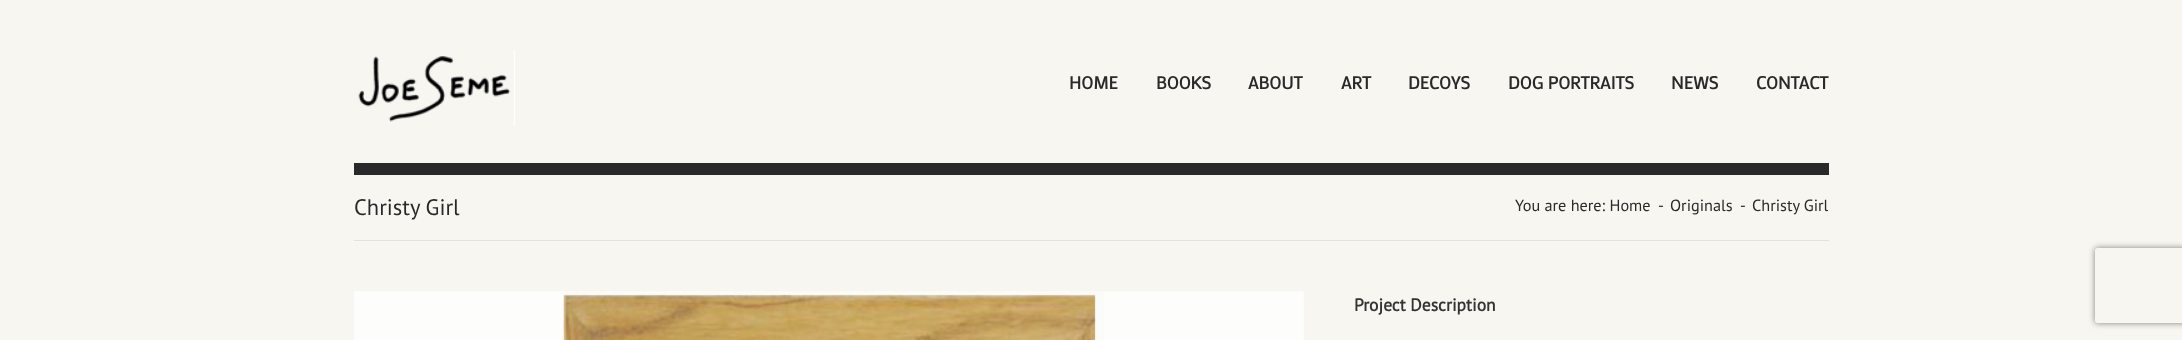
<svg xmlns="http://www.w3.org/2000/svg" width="2182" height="340">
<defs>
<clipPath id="clip1"><path d="M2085 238h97v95h-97zm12.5 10h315c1.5 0 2.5 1 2.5 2.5v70c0 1.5-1 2.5-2.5 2.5h-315c-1.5 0-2.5-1-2.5-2.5v-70c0-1.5 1-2.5 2.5-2.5z" clip-rule="evenodd"/></clipPath>
</defs>
<rect width="100%" height="100%" fill="#f7f6f0"/>
<rect x="354" y="163" width="1475" height="12" fill="#292929"/>
<image x="358" y="50" width="157" height="76" href="media/1.png"/>
<text x="1069" y="89" style="font-family:Mako;font-size:17.5px;font-weight:bold;fill:#292929">HOME</text>
<text x="1156" y="89" style="font-family:Mako;font-size:17.5px;font-weight:bold;fill:#292929">BOOKS</text>
<text x="1248" y="89" style="font-family:Mako;font-size:17.5px;font-weight:bold;fill:#292929">ABOUT</text>
<text x="1341" y="89" style="font-family:Mako;font-size:17.5px;font-weight:bold;fill:#292929">ART</text>
<text x="1408" y="89" style="font-family:Mako;font-size:17.5px;font-weight:bold;fill:#292929">DECOYS</text>
<text x="1508" y="89" style="font-family:Mako;font-size:17.5px;font-weight:bold;fill:#292929">DOG PORTRAITS</text>
<text x="1671" y="89" style="font-family:Mako;font-size:17.5px;font-weight:bold;fill:#292929">NEWS</text>
<text x="1756" y="89" style="font-family:Mako;font-size:17.5px;font-weight:bold;fill:#292929">CONTACT</text>
<rect x="354" y="240" width="1475" height="1" fill="#e1e1e0"/>
<text x="354" y="215" style="font-family:PT Sans;font-size:22.5px;fill:#292929">Christy Girl</text>
<text x="1515" y="211" style="font-family:PT Sans;font-size:16.25px;fill:#292929">You are here: Home</text>
<text x="1658" y="211" style="font-family:PT Sans;font-size:16.25px;fill:#292929">-</text>
<text x="1670" y="211" style="font-family:PT Sans;font-size:16.25px;fill:#292929">Originals</text>
<text x="1740" y="211" style="font-family:PT Sans;font-size:16.25px;fill:#292929">-</text>
<text x="1752" y="211" style="font-family:PT Sans;font-size:16.25px;fill:#292929">Christy Girl</text>
<image x="354" y="291" width="950" height="49" href="media/2.png"/>
<text x="1354" y="311" style="font-family:PT Sans;font-size:17.5px;font-weight:bold;fill:#333">Project Description</text>
<g clip-path="url(#clip1)">
<rect x="2095" y="248" width="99" height="75" rx="2.5" fill="#808080" filter="blur(3px)"/>
</g>
</svg>
